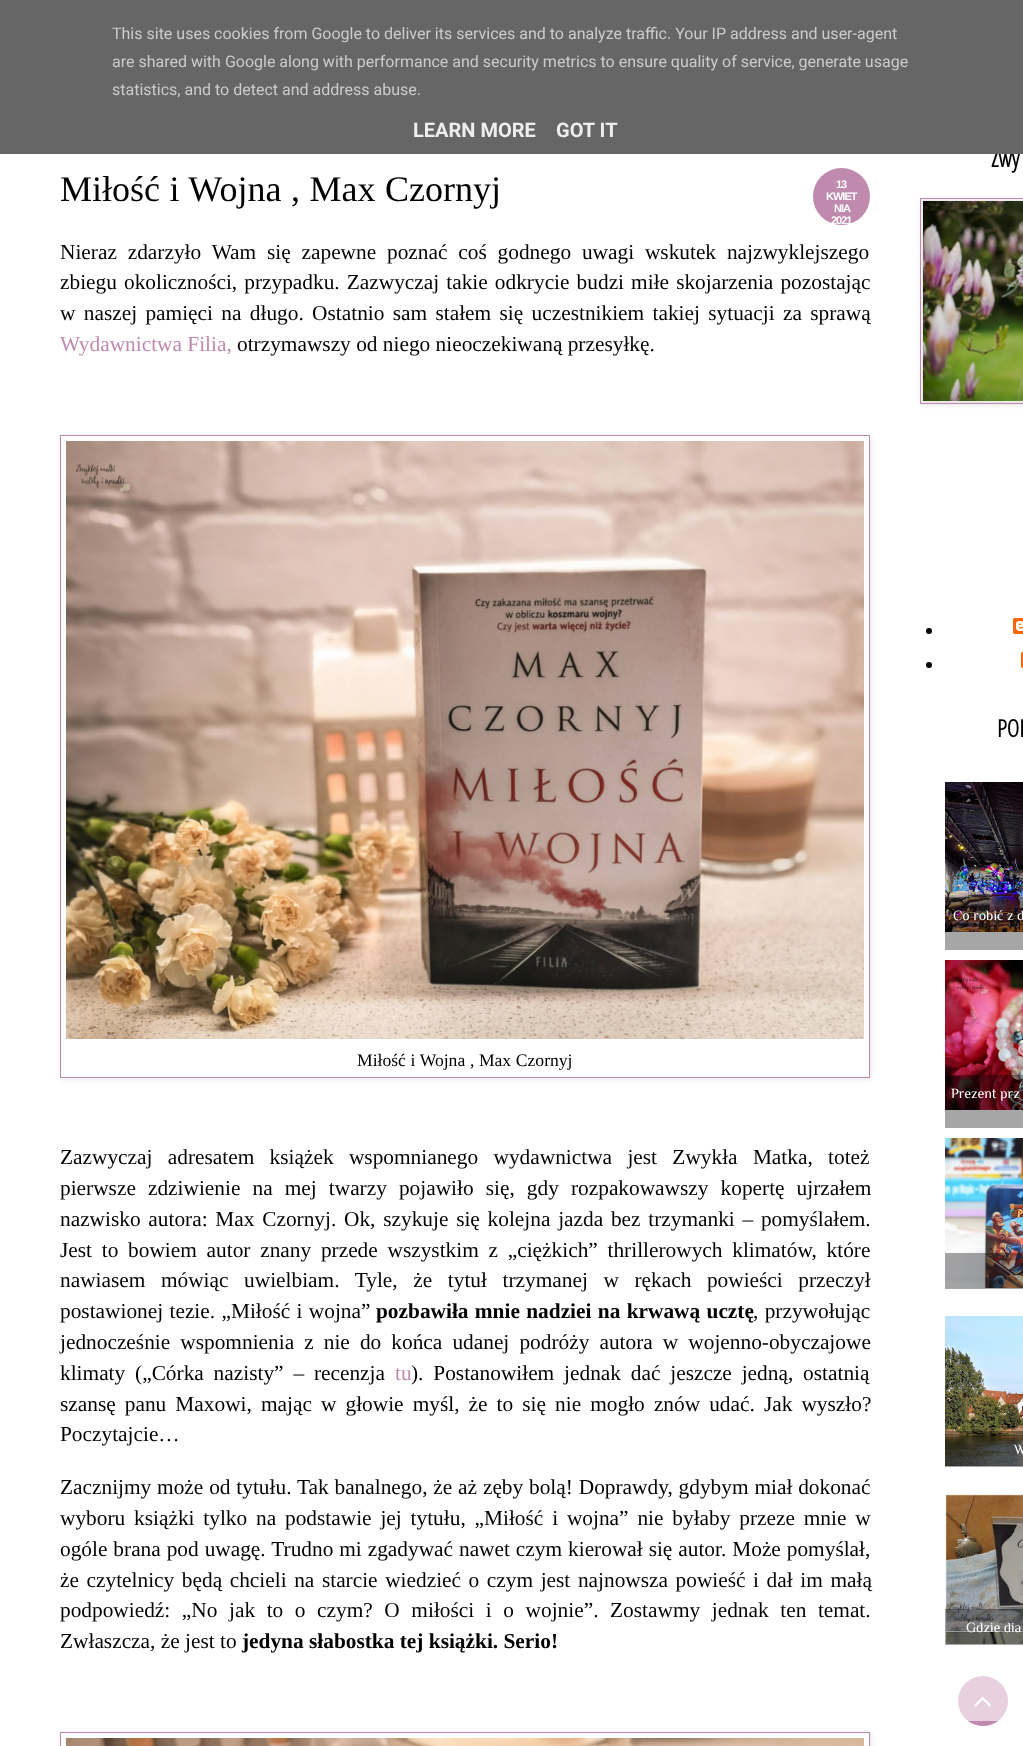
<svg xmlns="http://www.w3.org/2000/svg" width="1023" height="1746">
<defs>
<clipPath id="clip1"><path d="M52 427h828v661h-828zm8 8h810v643h-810z" clip-rule="evenodd"/></clipPath>
<clipPath id="clip2"><path d="M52 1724h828v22h-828zm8 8h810v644h-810z" clip-rule="evenodd"/></clipPath>
<clipPath id="clip3"><rect x="958" y="1676" width="50" height="50" rx="25"/></clipPath>
</defs>
<rect width="100%" height="100%" fill="#fff"/>
<text x="991" y="167" style="font-family:Open Sans Condensed;font-size:24px;font-weight:bold;fill:#000">Zwy</text>
<rect width="1023" height="154" fill="#666"/>
<text x="112" y="39" style="font-family:Roboto;font-size:16px;fill:#ccc">This site uses cookies from Google to deliver its services and to analyze traffic. Your IP address and user-agent</text>
<text x="112" y="67" style="font-family:Roboto;font-size:16px;fill:#ccc">are shared with Google along with performance and security metrics to ensure quality of service, generate usage</text>
<text x="112" y="95" style="font-family:Roboto;font-size:16px;fill:#ccc">statistics, and to detect and address abuse.</text>
<text x="413" y="137" style="font-family:Roboto;font-size:20px;font-weight:bold;fill:#eee">LEARN MORE</text>
<text x="556" y="137" style="font-family:Roboto;font-size:20px;font-weight:bold;fill:#eee">GOT IT</text>
<text x="60" y="201" word-spacing="0.5" style="font-family:Liberation Serif;font-size:36px;fill:#000">Miłość i Wojna , Max Czornyj</text>
<text x="60" y="259" word-spacing="5.5" style="font-family:Liberation Serif;font-size:21.35px;fill:#000">Nieraz zdarzyło Wam się zapewne poznać coś godnego uwagi wskutek najzwyklejszego</text>
<text x="60" y="289" word-spacing="1.75" style="font-family:Liberation Serif;font-size:21.35px;fill:#000">zbiegu okoliczności, przypadku. Zazwyczaj takie odkrycie budzi miłe skojarzenia pozostając</text>
<text x="60" y="320" word-spacing="3" style="font-family:Liberation Serif;font-size:21.35px;fill:#000">w naszej pamięci na długo. Ostatnio sam stałem się uczestnikiem takiej sytuacji za sprawą</text>
<text x="60" y="351" style="font-family:Liberation Serif;font-size:21.35px;fill:#c089ae">Wydawnictwa Filia,</text>
<text x="237" y="351" style="font-family:Liberation Serif;font-size:21.35px;fill:#000">otrzymawszy od niego nieoczekiwaną przesyłkę.</text>
<g clip-path="url(#clip1)">
<rect x="61" y="436" width="810" height="643" fill="#0000001a" filter="blur(2.5px)"/>
</g>
<rect x="60.5" y="435.5" width="809" height="642" fill="none" stroke="#c089ae"/>
<image x="66" y="441" width="798" height="598" href="media/1.png"/>
<text x="357" y="1066" word-spacing="0.25" style="font-family:Liberation Serif;font-size:17.6px;fill:#000">Miłość i Wojna , Max Czornyj</text>
<text x="60" y="1164" word-spacing="10" style="font-family:Liberation Serif;font-size:21.35px;fill:#000">Zazwyczaj adresatem książek wspomnianego wydawnictwa jest Zwykła Matka, toteż</text>
<text x="60" y="1195" word-spacing="6.75" style="font-family:Liberation Serif;font-size:21.35px;fill:#000">pierwsze zdziwienie na mej twarzy pojawiło się, gdy rozpakowawszy kopertę ujrzałem</text>
<text x="60" y="1226" word-spacing="2.4" style="font-family:Liberation Serif;font-size:21.35px;fill:#000">nazwisko autora: Max Czornyj. Ok, szykuje się kolejna jazda bez trzymanki – pomyślałem.</text>
<text x="60" y="1257" word-spacing="4.4" style="font-family:Liberation Serif;font-size:21.35px;fill:#000">Jest to bowiem autor znany przede wszystkim z „ciężkich” thrillerowych klimatów, które</text>
<text x="60" y="1287" word-spacing="10.25" style="font-family:Liberation Serif;font-size:21.35px;fill:#000">nawiasem mówiąc uwielbiam. Tyle, że tytuł trzymanej w rękach powieści przeczył</text>
<text x="60" y="1318" word-spacing="1" style="font-family:Liberation Serif;font-size:21.35px;fill:#000">postawionej tezie. „Miłość i wojna”</text>
<text x="376" y="1318" word-spacing="1" style="font-family:Liberation Serif;font-size:21.35px;font-weight:bold;fill:#000">pozbawiła mnie nadziei na krwawą ucztę</text>
<text x="753" y="1318" word-spacing="1" style="font-family:Liberation Serif;font-size:21.35px;fill:#000">, przywołując</text>
<text x="60" y="1349" word-spacing="4.75" style="font-family:Liberation Serif;font-size:21.35px;fill:#000">jednocześnie wspomnienia z nie do końca udanej podróży autora w wojenno-obyczajowe</text>
<text x="60" y="1380" word-spacing="4.5" style="font-family:Liberation Serif;font-size:21.35px;fill:#000">klimaty („Córka nazisty” – recenzja</text>
<text x="395" y="1380" style="font-family:Liberation Serif;font-size:21.35px;fill:#c089ae">tu</text>
<text x="411" y="1380" word-spacing="4.5" style="font-family:Liberation Serif;font-size:21.35px;fill:#000">). Postanowiłem jednak dać jeszcze jedną, ostatnią</text>
<text x="60" y="1411" word-spacing="3.75" style="font-family:Liberation Serif;font-size:21.35px;fill:#000">szansę panu Maxowi, mając w głowie myśl, że to się nie mogło znów udać. Jak wyszło?</text>
<text x="60" y="1441" style="font-family:Liberation Serif;font-size:21.35px;fill:#000">Poczytajcie…</text>
<text x="60" y="1494" word-spacing="0.5" style="font-family:Liberation Serif;font-size:21.35px;fill:#000">Zacznijmy może od tytułu. Tak banalnego, że aż zęby bolą! Doprawdy, gdybym miał dokonać</text>
<text x="60" y="1525" word-spacing="3.5" style="font-family:Liberation Serif;font-size:21.35px;fill:#000">wyboru książki tylko na podstawie jej tytułu, „Miłość i wojna” nie byłaby przeze mnie w</text>
<text x="60" y="1556" word-spacing="0.6" style="font-family:Liberation Serif;font-size:21.35px;fill:#000">ogóle brana pod uwagę. Trudno mi zgadywać nawet czym kierował się autor. Może pomyślał,</text>
<text x="60" y="1587" word-spacing="2.25" style="font-family:Liberation Serif;font-size:21.35px;fill:#000">że czytelnicy będą chcieli na starcie wiedzieć o czym jest najnowsza powieść i dał im małą</text>
<text x="60" y="1617" word-spacing="6.25" style="font-family:Liberation Serif;font-size:21.35px;fill:#000">podpowiedź: „No jak to o czym? O miłości i o wojnie”. Zostawmy jednak ten temat.</text>
<text x="60" y="1648" style="font-family:Liberation Serif;font-size:21.35px;fill:#000">Zwłaszcza, że jest to</text>
<text x="242" y="1648" style="font-family:Liberation Serif;font-size:21.35px;font-weight:bold;fill:#000">jedyna słabostka tej książki. Serio!</text>
<g clip-path="url(#clip2)">
<rect x="61" y="1733" width="810" height="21" fill="#0000001a" filter="blur(2.5px)"/>
</g>
<rect x="60.5" y="1732.5" width="809" height="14" fill="none" stroke="#c089ae"/>
<image x="66" y="1738" width="798" height="8" href="media/2.png"/>
<circle cx="841.5" cy="196.5" r="28.5" fill="#c089ae"/>
<text x="836" y="188" style="font-family:Liberation Sans;font-size:11px;font-weight:bold;letter-spacing:-1px;fill:#fff">13</text>
<text x="826" y="200" style="font-family:Liberation Sans;font-size:11px;font-weight:bold;letter-spacing:-1px;fill:#fff">KWIET</text>
<text x="834" y="212" style="font-family:Liberation Sans;font-size:11px;font-weight:bold;letter-spacing:-1px;fill:#fff">NIA</text>
<text x="831" y="224" style="font-family:Liberation Sans;font-size:11px;font-weight:bold;letter-spacing:-1px;fill:#fff">2021</text>
<rect x="921" y="199" width="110" height="206" fill="#0000001a" filter="blur(2.5px)"/>
<rect x="920.5" y="198.5" width="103" height="205" fill="none" stroke="#c089ae"/>
<image x="923" y="201" width="100" height="200" href="media/3.png"/>
<circle cx="929" cy="631" r="3" fill="#000"/>
<image x="1013" y="618" width="10" height="16" href="media/4.png"/>
<circle cx="929" cy="665" r="3" fill="#000"/>
<image x="1021" y="652" width="2" height="16" href="media/5.png"/>
<text x="997" y="737" style="font-family:Open Sans Condensed;font-size:24px;font-weight:bold;fill:#000">POP</text>
<image x="945" y="782" width="78" height="150" href="media/6.png"/>
<rect x="945" y="897" width="78" height="53" fill="#00000059"/>
<text x="953" y="920" style="font-family:Philosopher;font-size:14px;fill:#fff">Co robi</text>
<text x="997" y="920" style="font-family:Liberation Serif;font-size:14px;fill:#fff">ć</text>
<text x="1007" y="920" style="font-family:Philosopher;font-size:14px;fill:#fff">z d</text>
<image x="945" y="960" width="78" height="150" href="media/7.png"/>
<rect x="945" y="1075" width="78" height="53" fill="#00000059"/>
<text x="951" y="1098" style="font-family:Philosopher;font-size:14px;fill:#fff">Prezent prz</text>
<image x="945" y="1138" width="78" height="150" href="media/8.png"/>
<rect x="945" y="1253" width="78" height="36" fill="#00000059"/>
<image x="945" y="1316" width="78" height="150" href="media/9.png"/>
<rect x="945" y="1431" width="78" height="36" fill="#00000059"/>
<text x="1014" y="1454" style="font-family:Philosopher;font-size:14px;fill:#fff">W</text>
<image x="945" y="1494" width="78" height="150" href="media/10.png"/>
<rect x="945" y="1609" width="78" height="36" fill="#00000059"/>
<text x="966" y="1632" style="font-family:Philosopher;font-size:14px;fill:#fff">Gdzie dia</text>
<circle cx="983" cy="1701" r="25" fill="#e8d0e0"/>
<image x="974" y="1696" width="17" height="11" href="media/11.png"/>
<g clip-path="url(#clip3)">
<rect x="968" y="1721" width="30" height="5" fill="#c089ae"/>
</g>
</svg>
